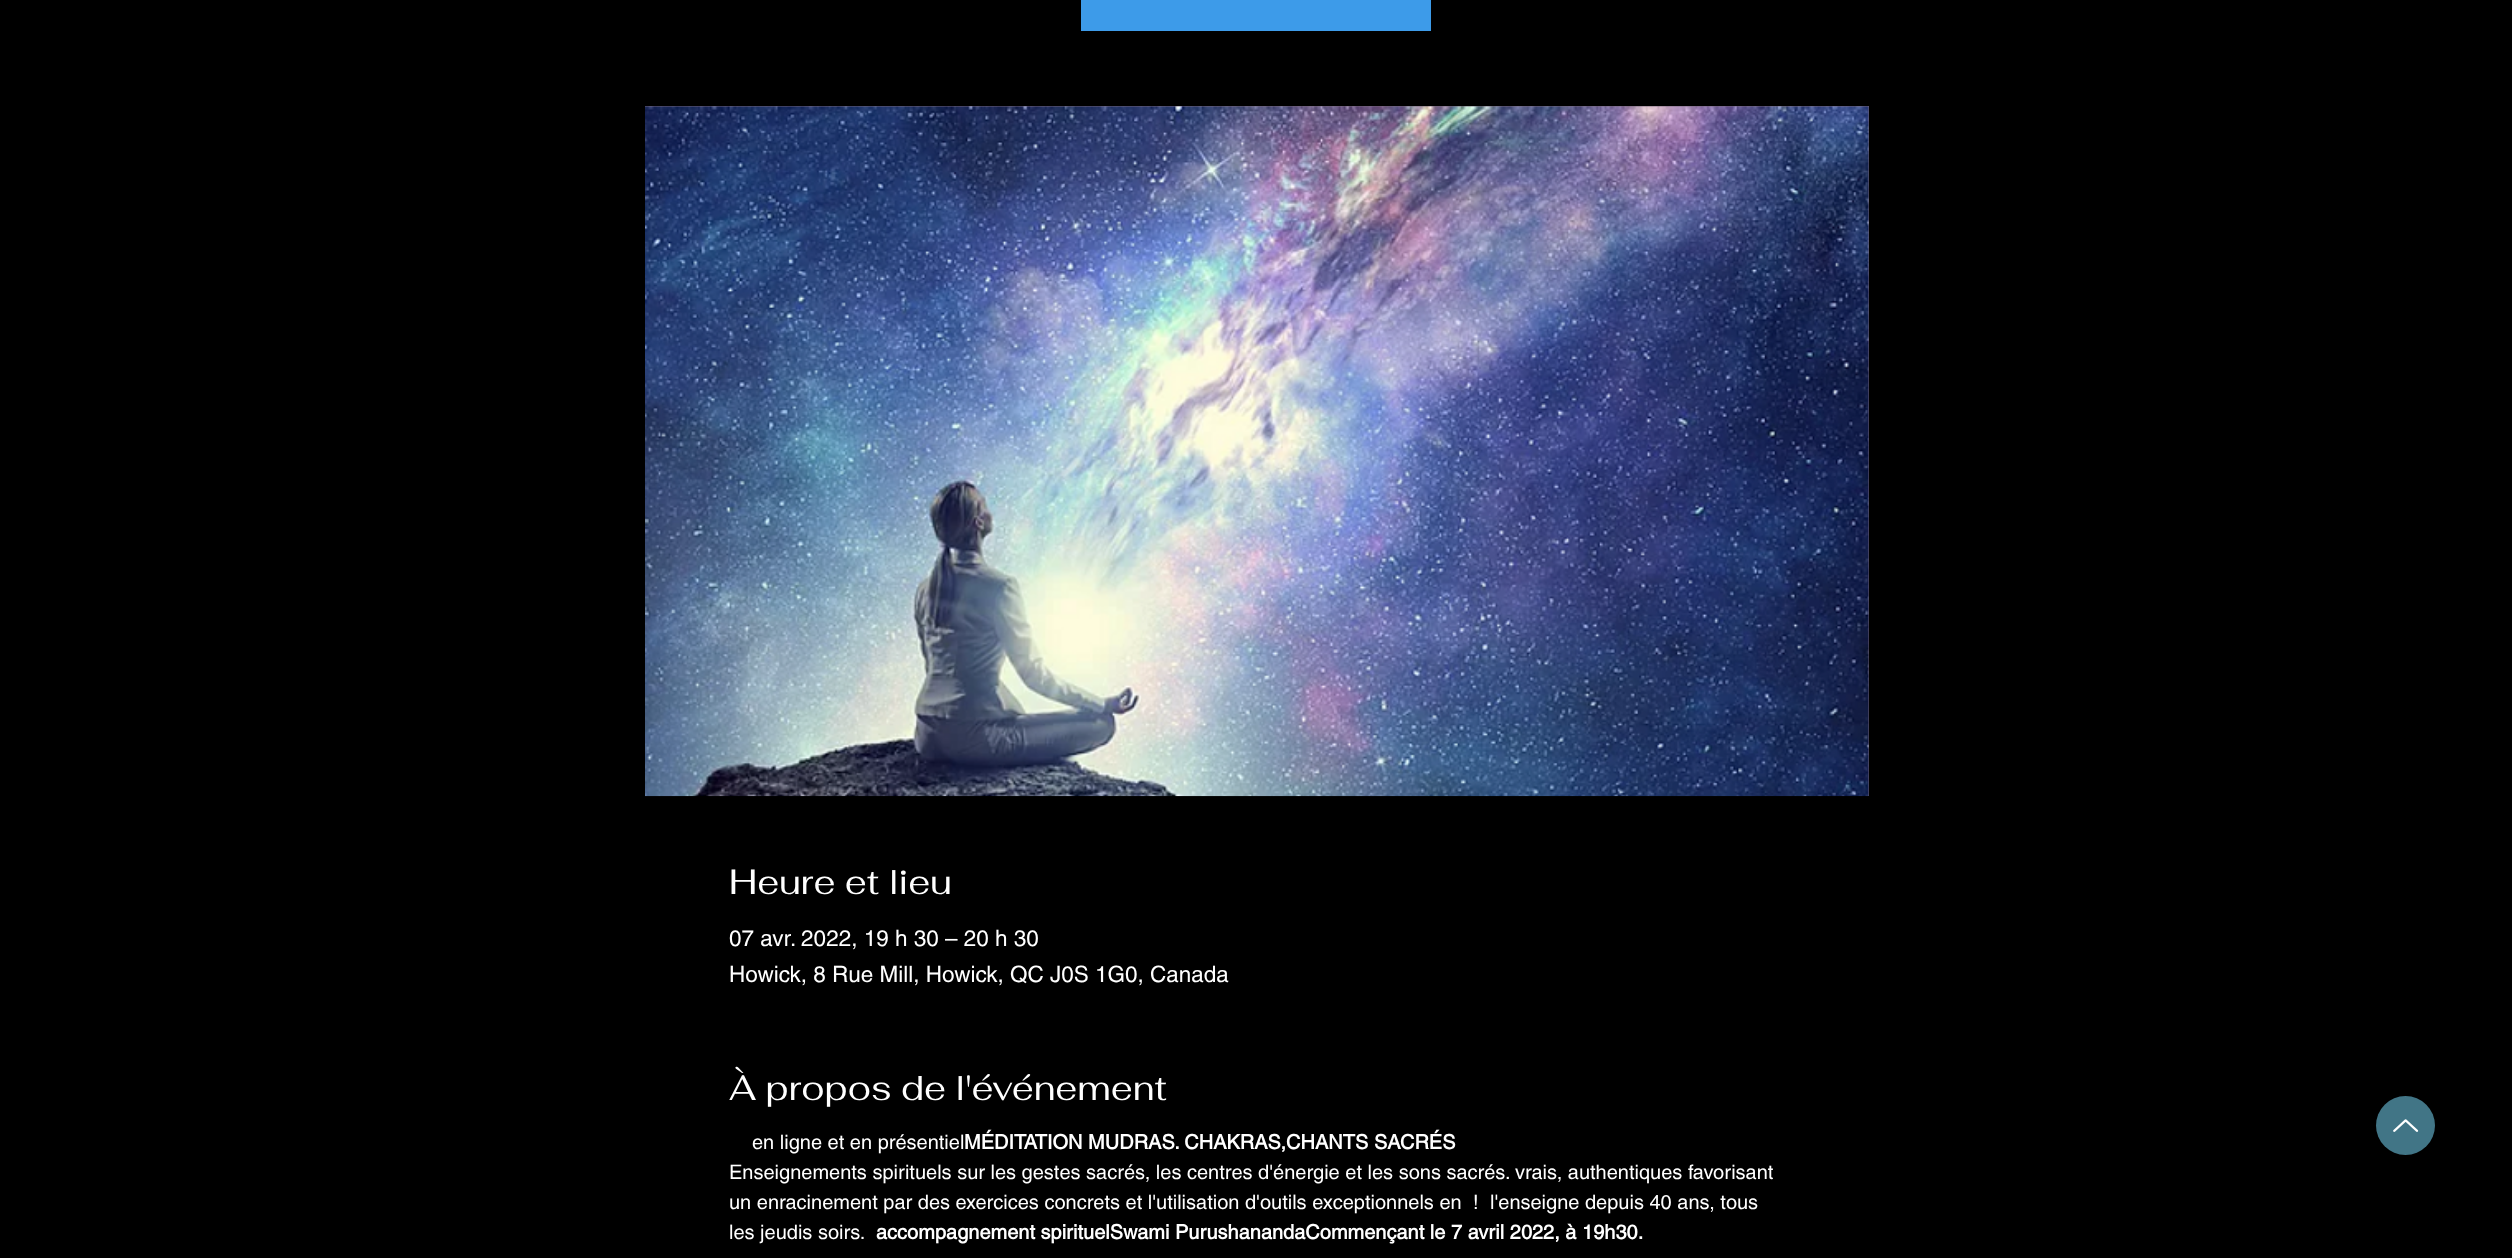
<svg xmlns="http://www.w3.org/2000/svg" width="2512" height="1258">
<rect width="100%" height="100%" fill="#000"/>
<rect x="1081" width="350" height="31" fill="#3d9be9"/>
<rect x="645" y="106" width="1224" height="690" fill="#78687a"/>
<image x="645" y="106" width="1224" height="691" href="media/1.png"/>
<text x="729" y="894" style="font-family:Fahkwang;font-size:35px;fill:#fff">Heure et lieu</text>
<text x="729" y="946" style="font-family:helvetica;font-size:22.5px;fill:#fff">07 avr. 2022, 19 h 30 – 20 h 30</text>
<text x="729" y="982" style="font-family:helvetica;font-size:22.5px;fill:#fff">Howick, 8 Rue Mill, Howick, QC J0S 1G0, Canada</text>
<text x="729" y="1100" style="font-family:Fahkwang;font-size:35px;fill:#fff">À propos de l'événement</text>
<text x="752" y="1149" style="font-family:helvetica;font-size:20px;fill:#fff">en ligne et en présentiel</text>
<text x="964" y="1149" style="font-family:helvetica;font-size:20px;font-weight:bold;fill:#fff">MÉDITATION MUDRAS. CHAKRAS,CHANTS SACRÉS</text>
<text x="729" y="1179" style="font-family:helvetica;font-size:20px;fill:#fff">Enseignements spirituels sur les gestes sacrés, les centres d'énergie et les sons sacrés. vrais, authentiques favorisant</text>
<text x="729" y="1209" style="font-family:helvetica;font-size:20px;fill:#fff">un enracinement par des exercices concrets et l'utilisation d'outils exceptionnels en</text>
<text x="1473" y="1209" style="font-family:helvetica;font-size:20px;fill:#fff">!</text>
<text x="1490" y="1209" style="font-family:helvetica;font-size:20px;fill:#fff">l'enseigne depuis 40 ans, tous</text>
<text x="729" y="1239" style="font-family:helvetica;font-size:20px;fill:#fff">les jeudis soirs.</text>
<text x="876" y="1239" style="font-family:helvetica;font-size:20px;font-weight:bold;fill:#fff">accompagnement spirituelSwami PurushanandaCommençant le 7 avril 2022, à 19h30.</text>
<circle cx="2405.5" cy="1125.5" r="29.5" fill="#417586"/>
<image x="2393" y="1119" width="26" height="13" href="media/2.png"/>
</svg>
